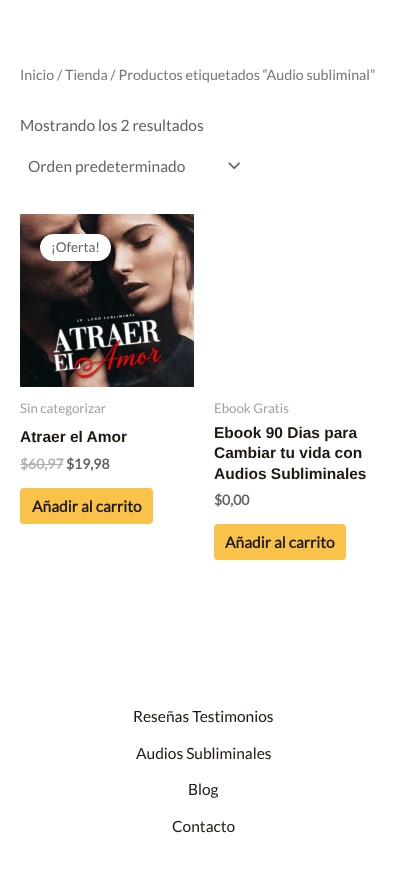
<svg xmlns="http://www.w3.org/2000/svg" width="407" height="885">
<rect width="100%" height="100%" fill="#fff"/>
<text x="20" y="80" style="font-family:Lato;font-size:14.25px;fill:#777">Inicio / Tienda / Productos etiquetados “Audio subliminal”</text>
<text x="20" y="131" style="font-family:Lato;font-size:15.5px;fill:#62615c">Mostrando los 2 resultados</text>
<image x="228" y="162" width="12" height="8" href="media/1.png"/>
<text x="28" y="172" style="font-family:Lato;font-size:15.5px;fill:#666">Orden predeterminado</text>
<image x="20" y="214" width="174" height="173" href="media/2.png"/>
<rect x="40" y="238" width="71" height="27" rx="13.5" fill="#00000026" filter="blur(2px)"/>
<rect x="40" y="234" width="71" height="27" rx="13.5" fill="#fff"/>
<text x="51" y="252" style="font-family:Lato;font-size:13.5px;fill:#62615c">¡Oferta!</text>
<text x="20" y="413" style="font-family:Lato;font-size:13.25px;fill:#a1a09d">Sin categorizar</text>
<text x="20" y="442" style="font-family:Liberation Sans;font-size:15.5px;font-weight:bold;fill:#1e1810">Atraer el Amor</text>
<text x="20" y="469" style="font-family:Lato;font-size:14px;font-weight:bold;fill:#b1b0ae">$60,97</text>
<rect x="20" y="464" width="43" height="1" fill="#b1b0ae"/>
<text x="66" y="469" style="font-family:Lato;font-size:14px;font-weight:bold;fill:#62615c">$19,98</text>
<rect x="20" y="488" width="133" height="36" rx="4" fill="#f9c349"/>
<text x="32" y="512" style="font-family:Lato;font-size:15.5px;font-weight:bold;fill:#1e1810">Añadir al carrito</text>
<text x="214" y="413" style="font-family:Lato;font-size:13.25px;fill:#a1a09d">Ebook Gratis</text>
<text x="214" y="438" style="font-family:Liberation Sans;font-size:15.5px;font-weight:bold;fill:#1e1810">Ebook 90 Dias para</text>
<text x="214" y="458" style="font-family:Liberation Sans;font-size:15.5px;font-weight:bold;fill:#1e1810">Cambiar tu vida con</text>
<text x="214" y="479" style="font-family:Liberation Sans;font-size:15.5px;font-weight:bold;fill:#1e1810">Audios Subliminales</text>
<text x="214" y="505" style="font-family:Lato;font-size:14px;font-weight:bold;fill:#62615c">$0,00</text>
<rect x="214" y="524" width="132" height="36" rx="4" fill="#f9c349"/>
<text x="225" y="548" style="font-family:Lato;font-size:15.5px;font-weight:bold;fill:#1e1810">Añadir al carrito</text>
<text x="133" y="722" style="font-family:Lato;font-size:15.5px;fill:#1e1810">Reseñas Testimonios</text>
<text x="136" y="759" style="font-family:Lato;font-size:15.5px;fill:#1e1810">Audios Subliminales</text>
<text x="188" y="795" style="font-family:Lato;font-size:15.5px;fill:#1e1810">Blog</text>
<text x="172" y="832" style="font-family:Lato;font-size:15.5px;fill:#1e1810">Contacto</text>
</svg>
